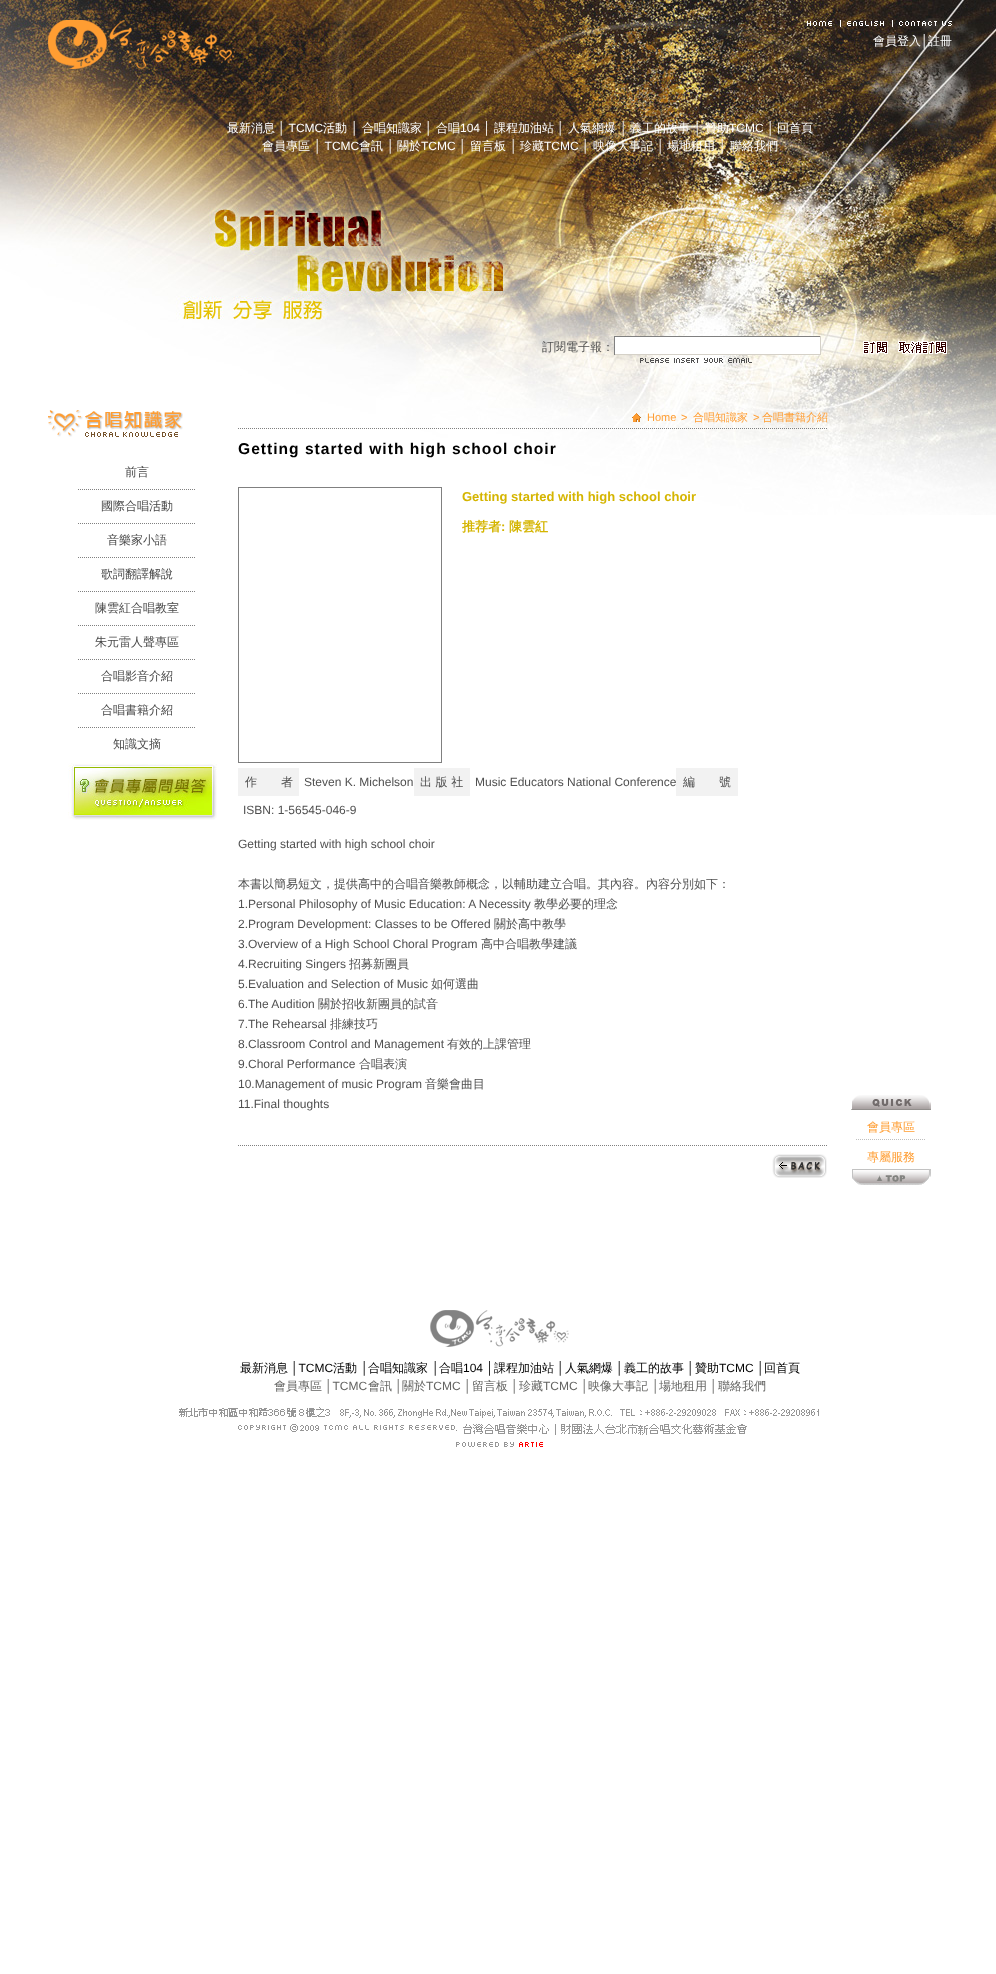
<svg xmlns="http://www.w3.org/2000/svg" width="996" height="1974">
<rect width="100%" height="100%" fill="#fff"/>
<image x="0" y="0" width="996" height="515" href="media/1.png"/>
<image x="48" y="20" width="187" height="49" href="media/2.png"/>
<image x="807" y="20" width="34" height="7" href="media/3.png"/>
<image x="847" y="20" width="46" height="7" href="media/4.png"/>
<image x="899" y="21" width="53" height="5" href="media/5.png"/>
<text x="873" y="45" style="font-family:WenQuanYi Zen Hei;font-size:12px;font-weight:500;fill:#fff">會員登入</text>
<text x="921" y="45" style="font-family:Liberation Sans;font-size:12px;fill:#fff">│</text>
<text x="928" y="45" style="font-family:WenQuanYi Zen Hei;font-size:12px;font-weight:500;fill:#fff">註冊</text>
<text x="227" y="132" style="font-family:WenQuanYi Zen Hei;font-size:12px;font-weight:500;fill:#fff">最新消息</text>
<text x="278" y="132" style="font-family:Liberation Sans;font-size:12px;fill:#fff">│ TCMC</text>
<text x="323" y="132" style="font-family:WenQuanYi Zen Hei;font-size:12px;font-weight:500;fill:#fff">活動</text>
<text x="351" y="132" style="font-family:Liberation Sans;font-size:12px;fill:#fff">│</text>
<text x="362" y="132" style="font-family:WenQuanYi Zen Hei;font-size:12px;font-weight:500;fill:#fff">合唱知識家</text>
<text x="425" y="132" style="font-family:Liberation Sans;font-size:12px;fill:#fff">│</text>
<text x="436" y="132" style="font-family:WenQuanYi Zen Hei;font-size:12px;font-weight:500;fill:#fff">合唱</text>
<text x="460" y="132" style="font-family:Liberation Sans;font-size:12px;fill:#fff">104 │</text>
<text x="494" y="132" style="font-family:WenQuanYi Zen Hei;font-size:12px;font-weight:500;fill:#fff">課程加油站</text>
<text x="557" y="132" style="font-family:Liberation Sans;font-size:12px;fill:#fff">│</text>
<text x="568" y="132" style="font-family:WenQuanYi Zen Hei;font-size:12px;font-weight:500;fill:#fff">人氣網爆</text>
<text x="620" y="132" style="font-family:Liberation Sans;font-size:12px;fill:#fff">│</text>
<text x="630" y="132" style="font-family:WenQuanYi Zen Hei;font-size:12px;font-weight:500;fill:#fff">義工的故事</text>
<text x="694" y="132" style="font-family:Liberation Sans;font-size:12px;fill:#fff">│</text>
<text x="705" y="132" style="font-family:WenQuanYi Zen Hei;font-size:12px;font-weight:500;fill:#fff">贊助</text>
<text x="729" y="132" style="font-family:Liberation Sans;font-size:12px;fill:#fff">TCMC │</text>
<text x="777" y="132" style="font-family:WenQuanYi Zen Hei;font-size:12px;font-weight:500;fill:#fff">回首頁</text>
<text x="262" y="150" style="font-family:WenQuanYi Zen Hei;font-size:12px;font-weight:500;fill:#fff">會員專區</text>
<text x="314" y="150" style="font-family:Liberation Sans;font-size:12px;fill:#fff">│ TCMC</text>
<text x="359" y="150" style="font-family:WenQuanYi Zen Hei;font-size:12px;font-weight:500;fill:#fff">會訊</text>
<text x="387" y="150" style="font-family:Liberation Sans;font-size:12px;fill:#fff">│</text>
<text x="397" y="150" style="font-family:WenQuanYi Zen Hei;font-size:12px;font-weight:500;fill:#fff">關於</text>
<text x="421" y="150" style="font-family:Liberation Sans;font-size:12px;fill:#fff">TCMC │</text>
<text x="470" y="150" style="font-family:WenQuanYi Zen Hei;font-size:12px;font-weight:500;fill:#fff">留言板</text>
<text x="510" y="150" style="font-family:Liberation Sans;font-size:12px;fill:#fff">│</text>
<text x="520" y="150" style="font-family:WenQuanYi Zen Hei;font-size:12px;font-weight:500;fill:#fff">珍藏</text>
<text x="544" y="150" style="font-family:Liberation Sans;font-size:12px;fill:#fff">TCMC │</text>
<text x="593" y="150" style="font-family:WenQuanYi Zen Hei;font-size:12px;font-weight:500;fill:#fff">映像大事記</text>
<text x="657" y="150" style="font-family:Liberation Sans;font-size:12px;fill:#fff">│</text>
<text x="667" y="150" style="font-family:WenQuanYi Zen Hei;font-size:12px;font-weight:500;fill:#fff">場地租用</text>
<text x="719" y="150" style="font-family:Liberation Sans;font-size:12px;fill:#fff">│</text>
<text x="730" y="150" style="font-family:WenQuanYi Zen Hei;font-size:12px;font-weight:500;fill:#fff">聯絡我們</text>
<image x="640" y="358" width="112" height="5" href="media/6.png"/>
<text x="542" y="351" style="font-family:WenQuanYi Zen Hei;font-size:12px;font-weight:500;fill:#505050">訂閱電子報：</text>
<rect x="615" y="337" width="205" height="17" fill="#fff"/>
<rect x="614" y="336" width="207" height="1" fill="#808080"/>
<rect x="820" y="336" width="1" height="19" fill="#d5d1c8"/>
<rect x="614" y="354" width="207" height="1" fill="#d5d1c8"/>
<rect x="614" y="336" width="1" height="19" fill="#808080"/>
<image x="863" y="341" width="25" height="13" href="media/7.png"/>
<image x="898" y="341" width="49" height="13" href="media/8.png"/>
<image x="48" y="410" width="135" height="27" href="media/9.png"/>
<image x="78" y="489" width="117" height="1" href="media/10.png"/>
<text x="125" y="476" style="font-family:WenQuanYi Zen Hei;font-size:12px;font-weight:500;fill:#484848">前言</text>
<image x="78" y="523" width="117" height="1" href="media/10.png"/>
<text x="101" y="510" style="font-family:WenQuanYi Zen Hei;font-size:12px;font-weight:500;fill:#484848">國際合唱活動</text>
<image x="78" y="557" width="117" height="1" href="media/10.png"/>
<text x="107" y="544" style="font-family:WenQuanYi Zen Hei;font-size:12px;font-weight:500;fill:#484848">音樂家小語</text>
<image x="78" y="591" width="117" height="1" href="media/10.png"/>
<text x="101" y="578" style="font-family:WenQuanYi Zen Hei;font-size:12px;font-weight:500;fill:#484848">歌詞翻譯解說</text>
<image x="78" y="625" width="117" height="1" href="media/10.png"/>
<text x="95" y="612" style="font-family:WenQuanYi Zen Hei;font-size:12px;font-weight:500;fill:#484848">陳雲紅合唱教室</text>
<image x="78" y="659" width="117" height="1" href="media/10.png"/>
<text x="95" y="646" style="font-family:WenQuanYi Zen Hei;font-size:12px;font-weight:500;fill:#484848">朱元雷人聲專區</text>
<image x="78" y="693" width="117" height="1" href="media/10.png"/>
<text x="101" y="680" style="font-family:WenQuanYi Zen Hei;font-size:12px;font-weight:500;fill:#484848">合唱影音介紹</text>
<image x="78" y="727" width="117" height="1" href="media/10.png"/>
<text x="101" y="714" style="font-family:WenQuanYi Zen Hei;font-size:12px;font-weight:500;fill:#484848">合唱書籍介紹</text>
<text x="113" y="748" style="font-family:WenQuanYi Zen Hei;font-size:12px;font-weight:500;fill:#484848">知識文摘</text>
<image x="68" y="763" width="149" height="57" href="media/11.png"/>
<image x="238" y="428" width="589" height="1" href="media/12.png"/>
<image x="632" y="413" width="9" height="9" href="media/13.png"/>
<text x="647" y="421" style="font-family:Liberation Sans;font-size:11px;fill:#ff9d32">Home</text>
<text x="681" y="421" style="font-family:Liberation Sans;font-size:11px;fill:#ff9d32">&gt;</text>
<text x="693" y="421" style="font-family:WenQuanYi Zen Hei;font-size:11px;font-weight:500;fill:#ff9d32">合唱知識家</text>
<text x="753" y="421" style="font-family:Liberation Sans;font-size:11px;fill:#ff9d32">&gt;</text>
<text x="762" y="421" style="font-family:WenQuanYi Zen Hei;font-size:11px;font-weight:500;fill:#ff9d32">合唱書籍介紹</text>
<text x="238" y="454" style="font-family:Liberation Sans;font-size:15.6px;font-weight:bold;letter-spacing:1px;fill:#000">Getting started with high school choir</text>
<rect x="238.5" y="487.5" width="203" height="275" fill="none" stroke="#808080"/>
<text x="462" y="501" style="font-family:Liberation Sans;font-size:13px;font-weight:bold;fill:#d5b500">Getting started with high school choir</text>
<text x="462" y="531" style="font-family:WenQuanYi Zen Hei;font-size:13px;font-weight:bold;fill:#d5b500">推荐者</text>
<text x="501" y="531" style="font-family:Liberation Sans;font-size:13px;font-weight:bold;fill:#d5b500">:</text>
<text x="509" y="531" style="font-family:WenQuanYi Zen Hei;font-size:13px;font-weight:bold;fill:#d5b500">陳雲紅</text>
<rect x="238" y="768" width="61" height="28" fill="#f2f2f2"/>
<text x="245" y="786" style="font-family:WenQuanYi Zen Hei;font-size:12px;font-weight:500;fill:#505050">作　　者</text>
<text x="304" y="786" style="font-family:Liberation Sans;font-size:12px;fill:#505050">Steven K. Michelson</text>
<rect x="414" y="768" width="56" height="28" fill="#f2f2f2"/>
<text x="420" y="786" style="font-family:WenQuanYi Zen Hei;font-size:12px;font-weight:500;fill:#505050">出 版 社</text>
<text x="475" y="786" style="font-family:Liberation Sans;font-size:12px;fill:#505050">Music Educators National Conference</text>
<rect x="676" y="768" width="62" height="28" fill="#f2f2f2"/>
<text x="683" y="786" style="font-family:WenQuanYi Zen Hei;font-size:12px;font-weight:500;fill:#505050">編　　號</text>
<text x="243" y="814" style="font-family:Liberation Sans;font-size:12px;fill:#505050">ISBN: 1-56545-046-9</text>
<text x="238" y="848" style="font-family:Liberation Sans;font-size:12px;fill:#505050">Getting started with high school choir</text>
<text x="238" y="888" style="font-family:WenQuanYi Zen Hei;font-size:12px;font-weight:500;fill:#505050">本書以簡易短文，提供高中的合唱音樂教師概念，以輔助建立合唱。其內容。內容分別如下：</text>
<text x="238" y="908" style="font-family:Liberation Sans;font-size:12px;fill:#505050">1.Personal Philosophy of Music Education: A Necessity</text>
<text x="534" y="908" style="font-family:WenQuanYi Zen Hei;font-size:12px;font-weight:500;fill:#505050">教學必要的理念</text>
<text x="238" y="928" style="font-family:Liberation Sans;font-size:12px;fill:#505050">2.Program Development: Classes to be Offered</text>
<text x="494" y="928" style="font-family:WenQuanYi Zen Hei;font-size:12px;font-weight:500;fill:#505050">關於高中教學</text>
<text x="238" y="948" style="font-family:Liberation Sans;font-size:12px;fill:#505050">3.Overview of a High School Choral Program</text>
<text x="481" y="948" style="font-family:WenQuanYi Zen Hei;font-size:12px;font-weight:500;fill:#505050">高中合唱教學建議</text>
<text x="238" y="968" style="font-family:Liberation Sans;font-size:12px;fill:#505050">4.Recruiting Singers</text>
<text x="349" y="968" style="font-family:WenQuanYi Zen Hei;font-size:12px;font-weight:500;fill:#505050">招募新團員</text>
<text x="238" y="988" style="font-family:Liberation Sans;font-size:12px;fill:#505050">5.Evaluation and Selection of Music</text>
<text x="431" y="988" style="font-family:WenQuanYi Zen Hei;font-size:12px;font-weight:500;fill:#505050">如何選曲</text>
<text x="238" y="1008" style="font-family:Liberation Sans;font-size:12px;fill:#505050">6.The Audition</text>
<text x="318" y="1008" style="font-family:WenQuanYi Zen Hei;font-size:12px;font-weight:500;fill:#505050">關於招收新團員的試音</text>
<text x="238" y="1028" style="font-family:Liberation Sans;font-size:12px;fill:#505050">7.The Rehearsal</text>
<text x="330" y="1028" style="font-family:WenQuanYi Zen Hei;font-size:12px;font-weight:500;fill:#505050">排練技巧</text>
<text x="238" y="1048" style="font-family:Liberation Sans;font-size:12px;fill:#505050">8.Classroom Control and Management</text>
<text x="447" y="1048" style="font-family:WenQuanYi Zen Hei;font-size:12px;font-weight:500;fill:#505050">有效的上課管理</text>
<text x="238" y="1068" style="font-family:Liberation Sans;font-size:12px;fill:#505050">9.Choral Performance</text>
<text x="359" y="1068" style="font-family:WenQuanYi Zen Hei;font-size:12px;font-weight:500;fill:#505050">合唱表演</text>
<text x="238" y="1088" style="font-family:Liberation Sans;font-size:12px;fill:#505050">10.Management of music Program</text>
<text x="425" y="1088" style="font-family:WenQuanYi Zen Hei;font-size:12px;font-weight:500;fill:#505050">音樂會曲目</text>
<text x="238" y="1108" style="font-family:Liberation Sans;font-size:12px;fill:#505050">11.Final thoughts</text>
<image x="238" y="1145" width="589" height="1" href="media/14.png"/>
<image x="772" y="1154" width="55" height="24" href="media/15.png"/>
<image x="851" y="1095" width="80" height="15" href="media/16.png"/>
<path d="M856 1139.5h70" fill="none" stroke="#bfbfbf" stroke-dasharray="1 1"/>
<text x="867" y="1131" style="font-family:WenQuanYi Zen Hei;font-size:12px;font-weight:500;fill:#ff9d32">會員專區</text>
<text x="867" y="1161" style="font-family:WenQuanYi Zen Hei;font-size:12px;font-weight:500;fill:#ff9d32">專屬服務</text>
<image x="852" y="1169" width="79" height="16" href="media/17.png"/>
<image x="430" y="1310" width="139" height="37" href="media/18.png"/>
<text x="240" y="1372" style="font-family:WenQuanYi Zen Hei;font-size:12px;font-weight:500;fill:#000">最新消息</text>
<text x="291" y="1372" style="font-family:Liberation Sans;font-size:12px;fill:#000">│TCMC</text>
<text x="333" y="1372" style="font-family:WenQuanYi Zen Hei;font-size:12px;font-weight:500;fill:#000">活動</text>
<text x="361" y="1372" style="font-family:Liberation Sans;font-size:12px;fill:#000">│</text>
<text x="368" y="1372" style="font-family:WenQuanYi Zen Hei;font-size:12px;font-weight:500;fill:#000">合唱知識家</text>
<text x="432" y="1372" style="font-family:Liberation Sans;font-size:12px;fill:#000">│</text>
<text x="439" y="1372" style="font-family:WenQuanYi Zen Hei;font-size:12px;font-weight:500;fill:#000">合唱</text>
<text x="463" y="1372" style="font-family:Liberation Sans;font-size:12px;fill:#000">104 │</text>
<text x="494" y="1372" style="font-family:WenQuanYi Zen Hei;font-size:12px;font-weight:500;fill:#000">課程加油站</text>
<text x="557" y="1372" style="font-family:Liberation Sans;font-size:12px;fill:#000">│</text>
<text x="565" y="1372" style="font-family:WenQuanYi Zen Hei;font-size:12px;font-weight:500;fill:#000">人氣網爆</text>
<text x="616" y="1372" style="font-family:Liberation Sans;font-size:12px;fill:#000">│</text>
<text x="624" y="1372" style="font-family:WenQuanYi Zen Hei;font-size:12px;font-weight:500;fill:#000">義工的故事</text>
<text x="687" y="1372" style="font-family:Liberation Sans;font-size:12px;fill:#000">│</text>
<text x="695" y="1372" style="font-family:WenQuanYi Zen Hei;font-size:12px;font-weight:500;fill:#000">贊助</text>
<text x="719" y="1372" style="font-family:Liberation Sans;font-size:12px;fill:#000">TCMC │</text>
<text x="764" y="1372" style="font-family:WenQuanYi Zen Hei;font-size:12px;font-weight:500;fill:#000">回首頁</text>
<text x="274" y="1390" style="font-family:WenQuanYi Zen Hei;font-size:12px;font-weight:500;fill:#646462">會員專區</text>
<text x="325" y="1390" style="font-family:Liberation Sans;font-size:12px;fill:#646462">│TCMC</text>
<text x="368" y="1390" style="font-family:WenQuanYi Zen Hei;font-size:12px;font-weight:500;fill:#646462">會訊</text>
<text x="395" y="1390" style="font-family:Liberation Sans;font-size:12px;fill:#646462">│</text>
<text x="402" y="1390" style="font-family:WenQuanYi Zen Hei;font-size:12px;font-weight:500;fill:#646462">關於</text>
<text x="426" y="1390" style="font-family:Liberation Sans;font-size:12px;fill:#646462">TCMC │</text>
<text x="472" y="1390" style="font-family:WenQuanYi Zen Hei;font-size:12px;font-weight:500;fill:#646462">留言板</text>
<text x="511" y="1390" style="font-family:Liberation Sans;font-size:12px;fill:#646462">│</text>
<text x="519" y="1390" style="font-family:WenQuanYi Zen Hei;font-size:12px;font-weight:500;fill:#646462">珍藏</text>
<text x="543" y="1390" style="font-family:Liberation Sans;font-size:12px;fill:#646462">TCMC │</text>
<text x="588" y="1390" style="font-family:WenQuanYi Zen Hei;font-size:12px;font-weight:500;fill:#646462">映像大事記</text>
<text x="652" y="1390" style="font-family:Liberation Sans;font-size:12px;fill:#646462">│</text>
<text x="659" y="1390" style="font-family:WenQuanYi Zen Hei;font-size:12px;font-weight:500;fill:#646462">場地租用</text>
<text x="710" y="1390" style="font-family:Liberation Sans;font-size:12px;fill:#646462">│</text>
<text x="718" y="1390" style="font-family:WenQuanYi Zen Hei;font-size:12px;font-weight:500;fill:#646462">聯絡我們</text>
<image x="179" y="1407" width="640" height="40" href="media/19.png"/>
</svg>
